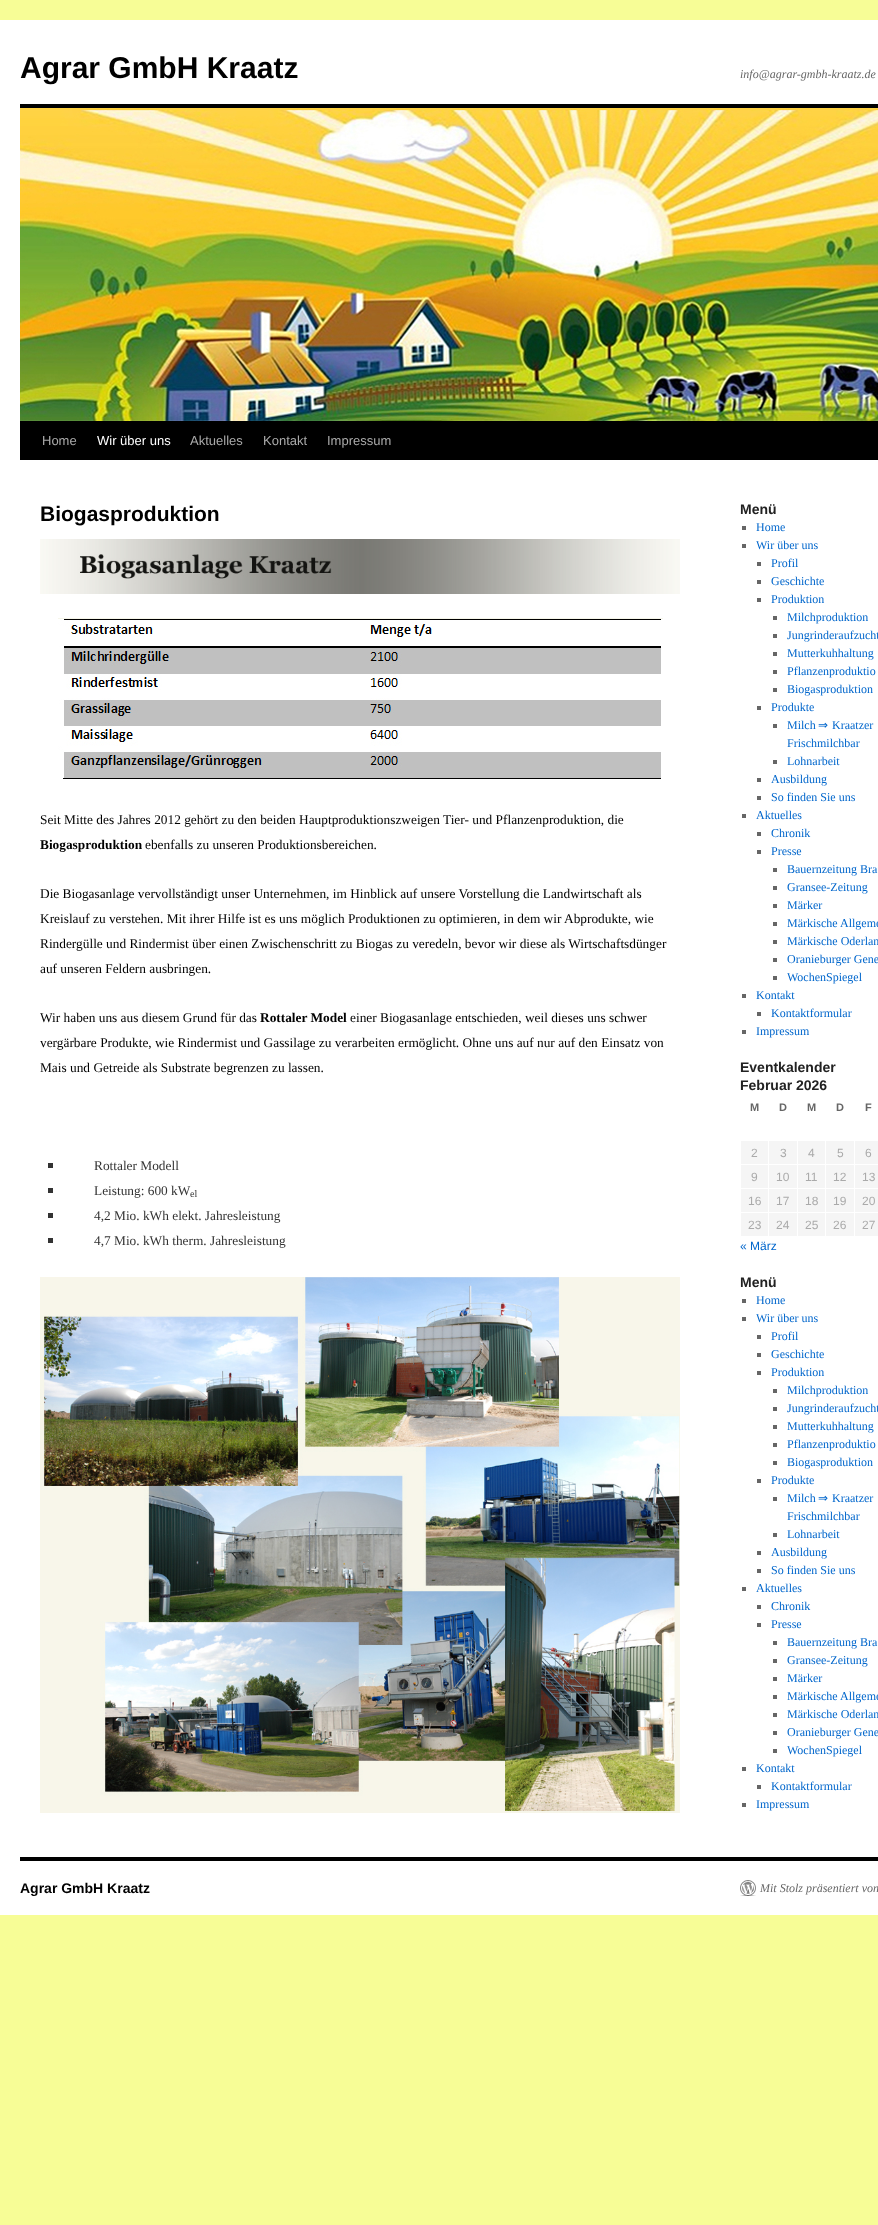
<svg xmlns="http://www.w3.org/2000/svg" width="878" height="2225">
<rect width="100%" height="100%" fill="#f7fd96"/>
<rect y="20" width="878" height="1895" fill="#fff"/>
<text x="20" y="78" style="font-family:Liberation Sans;font-size:30px;font-weight:bold;fill:#000">Agrar GmbH Kraatz</text>
<text x="740" y="78" style="font-family:Liberation Serif;font-size:12px;font-style:italic;fill:#666">info@agrar-gmbh-kraatz.de</text>
<rect x="20" y="104" width="858" height="4" fill="#000"/>
<rect x="20" y="421" width="858" height="39" fill="#000"/>
<image x="20" y="108" width="858" height="313" href="media/1.png"/>
<text x="42" y="445" style="font-family:Liberation Sans;font-size:13px;fill:#aaa">Home</text>
<text x="97" y="445" style="font-family:Liberation Sans;font-size:13px;fill:#fff">Wir über uns</text>
<text x="190" y="445" style="font-family:Liberation Sans;font-size:13px;fill:#aaa">Aktuelles</text>
<text x="263" y="445" style="font-family:Liberation Sans;font-size:13px;fill:#aaa">Kontakt</text>
<text x="327" y="445" style="font-family:Liberation Sans;font-size:13px;fill:#aaa">Impressum</text>
<text x="40" y="521" style="font-family:Liberation Sans;font-size:21px;font-weight:bold;fill:#000">Biogasproduktion</text>
<image x="40" y="539" width="640" height="55" href="media/2.png"/>
<image x="58" y="618" width="605" height="161" href="media/3.png"/>
<text x="40" y="824" style="font-family:Liberation Serif;font-size:13.35px;fill:#000">Seit Mitte des Jahres 2012 gehört zu den beiden Hauptproduktionszweigen Tier- und Pflanzenproduktion, die</text>
<text x="40" y="849" style="font-family:Liberation Serif;font-size:13.35px;font-weight:bold;fill:#000">Biogasproduktion</text>
<text x="145" y="849" style="font-family:Liberation Serif;font-size:13.35px;fill:#000">ebenfalls zu unseren Produktionsbereichen.</text>
<text x="40" y="898" style="font-family:Liberation Serif;font-size:13.35px;fill:#000">Die Biogasanlage vervollständigt unser Unternehmen, im Hinblick auf unsere Vorstellung die Landwirtschaft als</text>
<text x="40" y="923" style="font-family:Liberation Serif;font-size:13.35px;fill:#000">Kreislauf zu verstehen. Mit ihrer Hilfe ist es uns möglich Produktionen zu optimieren, in dem wir Abprodukte, wie</text>
<text x="40" y="948" style="font-family:Liberation Serif;font-size:13.35px;fill:#000">Rindergülle und Rindermist über einen Zwischenschritt zu Biogas zu veredeln, bevor wir diese als Wirtschaftsdünger</text>
<text x="40" y="973" style="font-family:Liberation Serif;font-size:13.35px;fill:#000">auf unseren Feldern ausbringen.</text>
<text x="40" y="1022" style="font-family:Liberation Serif;font-size:13.35px;fill:#000">Wir haben uns aus diesem Grund für das</text>
<text x="260" y="1022" style="font-family:Liberation Serif;font-size:13.35px;font-weight:bold;fill:#000">Rottaler Model</text>
<text x="350" y="1022" style="font-family:Liberation Serif;font-size:13.35px;fill:#000">einer Biogasanlage entschieden, weil dieses uns schwer</text>
<text x="40" y="1047" style="font-family:Liberation Serif;font-size:13.35px;fill:#000">vergärbare Produkte, wie Rindermist und Gassilage zu verarbeiten ermöglicht. Ohne uns auf nur auf den Einsatz von</text>
<text x="40" y="1072" style="font-family:Liberation Serif;font-size:13.35px;fill:#000">Mais und Getreide als Substrate begrenzen zu lassen.</text>
<rect x="48" y="1163" width="5" height="5" fill="#333"/>
<text x="94" y="1170" style="font-family:Liberation Serif;font-size:13.35px;fill:#333">Rottaler Modell</text>
<rect x="48" y="1188" width="5" height="5" fill="#333"/>
<text x="94" y="1195" style="font-family:Liberation Serif;font-size:13.35px;fill:#333">Leistung: 600 kW</text>
<text x="190" y="1197" style="font-family:Liberation Serif;font-size:10px;fill:#333">el</text>
<rect x="48" y="1213" width="5" height="5" fill="#333"/>
<text x="94" y="1220" style="font-family:Liberation Serif;font-size:13.35px;fill:#333">4,2 Mio. kWh elekt. Jahresleistung</text>
<rect x="48" y="1238" width="5" height="5" fill="#333"/>
<text x="94" y="1245" style="font-family:Liberation Serif;font-size:13.35px;fill:#333">4,7 Mio. kWh therm. Jahresleistung</text>
<image x="40" y="1277" width="640" height="536" href="media/4.png"/>
<text x="740" y="514" style="font-family:Liberation Sans;font-size:14px;font-weight:bold;fill:#222">Menü</text>
<rect x="742" y="526" width="4" height="4" fill="#666"/>
<text x="756" y="531" style="font-family:Liberation Serif;font-size:12px;fill:#06c">Home</text>
<rect x="742" y="544" width="4" height="4" fill="#666"/>
<text x="756" y="549" style="font-family:Liberation Serif;font-size:12px;fill:#06c">Wir über uns</text>
<rect x="757" y="562" width="4" height="4" fill="#666"/>
<text x="771" y="567" style="font-family:Liberation Serif;font-size:12px;fill:#06c">Profil</text>
<rect x="757" y="580" width="4" height="4" fill="#666"/>
<text x="771" y="585" style="font-family:Liberation Serif;font-size:12px;fill:#06c">Geschichte</text>
<rect x="757" y="598" width="4" height="4" fill="#666"/>
<text x="771" y="603" style="font-family:Liberation Serif;font-size:12px;fill:#06c">Produktion</text>
<rect x="773" y="616" width="4" height="4" fill="#666"/>
<text x="787" y="621" style="font-family:Liberation Serif;font-size:12px;fill:#06c">Milchproduktion</text>
<rect x="773" y="634" width="4" height="4" fill="#666"/>
<text x="787" y="639" style="font-family:Liberation Serif;font-size:12px;fill:#06c">Jungrinderaufzucht</text>
<rect x="773" y="652" width="4" height="4" fill="#666"/>
<text x="787" y="657" style="font-family:Liberation Serif;font-size:12px;fill:#06c">Mutterkuhhaltung</text>
<rect x="773" y="670" width="4" height="4" fill="#666"/>
<text x="787" y="675" style="font-family:Liberation Serif;font-size:12px;fill:#06c">Pflanzenproduktio</text>
<rect x="773" y="688" width="4" height="4" fill="#666"/>
<text x="787" y="693" style="font-family:Liberation Serif;font-size:12px;fill:#06c">Biogasproduktion</text>
<rect x="757" y="706" width="4" height="4" fill="#666"/>
<text x="771" y="711" style="font-family:Liberation Serif;font-size:12px;fill:#06c">Produkte</text>
<rect x="773" y="724" width="4" height="4" fill="#666"/>
<text x="787" y="729" style="font-family:Liberation Serif;font-size:12px;fill:#06c">Milch</text>
<text x="818" y="729" style="font-family:DejaVu Sans;font-size:12px;fill:#06c">⇒</text>
<text x="832" y="729" style="font-family:Liberation Serif;font-size:12px;fill:#06c">Kraatzer</text>
<text x="787" y="747" style="font-family:Liberation Serif;font-size:12px;fill:#06c">Frischmilchbar</text>
<rect x="773" y="760" width="4" height="4" fill="#666"/>
<text x="787" y="765" style="font-family:Liberation Serif;font-size:12px;fill:#06c">Lohnarbeit</text>
<rect x="757" y="778" width="4" height="4" fill="#666"/>
<text x="771" y="783" style="font-family:Liberation Serif;font-size:12px;fill:#06c">Ausbildung</text>
<rect x="757" y="796" width="4" height="4" fill="#666"/>
<text x="771" y="801" style="font-family:Liberation Serif;font-size:12px;fill:#06c">So finden Sie uns</text>
<rect x="742" y="814" width="4" height="4" fill="#666"/>
<text x="756" y="819" style="font-family:Liberation Serif;font-size:12px;fill:#06c">Aktuelles</text>
<rect x="757" y="832" width="4" height="4" fill="#666"/>
<text x="771" y="837" style="font-family:Liberation Serif;font-size:12px;fill:#06c">Chronik</text>
<rect x="757" y="850" width="4" height="4" fill="#666"/>
<text x="771" y="855" style="font-family:Liberation Serif;font-size:12px;fill:#06c">Presse</text>
<rect x="773" y="868" width="4" height="4" fill="#666"/>
<text x="787" y="873" style="font-family:Liberation Serif;font-size:12px;fill:#06c">Bauernzeitung Bra</text>
<rect x="773" y="886" width="4" height="4" fill="#666"/>
<text x="787" y="891" style="font-family:Liberation Serif;font-size:12px;fill:#06c">Gransee-Zeitung</text>
<rect x="773" y="904" width="4" height="4" fill="#666"/>
<text x="787" y="909" style="font-family:Liberation Serif;font-size:12px;fill:#06c">Märker</text>
<rect x="773" y="922" width="4" height="4" fill="#666"/>
<text x="787" y="927" style="font-family:Liberation Serif;font-size:12px;fill:#06c">Märkische Allgeme</text>
<rect x="773" y="940" width="4" height="4" fill="#666"/>
<text x="787" y="945" style="font-family:Liberation Serif;font-size:12px;fill:#06c">Märkische Oderlan</text>
<rect x="773" y="958" width="4" height="4" fill="#666"/>
<text x="787" y="963" style="font-family:Liberation Serif;font-size:12px;fill:#06c">Oranieburger Gene</text>
<rect x="773" y="976" width="4" height="4" fill="#666"/>
<text x="787" y="981" style="font-family:Liberation Serif;font-size:12px;fill:#06c">WochenSpiegel</text>
<rect x="742" y="994" width="4" height="4" fill="#666"/>
<text x="756" y="999" style="font-family:Liberation Serif;font-size:12px;fill:#06c">Kontakt</text>
<rect x="757" y="1012" width="4" height="4" fill="#666"/>
<text x="771" y="1017" style="font-family:Liberation Serif;font-size:12px;fill:#06c">Kontaktformular</text>
<rect x="742" y="1030" width="4" height="4" fill="#666"/>
<text x="756" y="1035" style="font-family:Liberation Serif;font-size:12px;fill:#06c">Impressum</text>
<text x="740" y="1072" style="font-family:Liberation Sans;font-size:14px;font-weight:bold;fill:#222">Eventkalender</text>
<text x="740" y="1090" style="font-family:Liberation Sans;font-size:14px;font-weight:bold;fill:#222">Februar 2026</text>
<text x="750" y="1111" style="font-family:Liberation Sans;font-size:11px;font-weight:bold;fill:#666">M</text>
<text x="779" y="1111" style="font-family:Liberation Sans;font-size:11px;font-weight:bold;fill:#666">D</text>
<text x="807" y="1111" style="font-family:Liberation Sans;font-size:11px;font-weight:bold;fill:#666">M</text>
<text x="836" y="1111" style="font-family:Liberation Sans;font-size:11px;font-weight:bold;fill:#666">D</text>
<text x="865" y="1111" style="font-family:Liberation Sans;font-size:11px;font-weight:bold;fill:#666">F</text>
<rect x="741" y="1141" width="27" height="23" fill="#f5f5f5"/>
<text x="751" y="1157" style="font-family:Liberation Sans;font-size:12px;fill:#aaa">2</text>
<rect x="769" y="1141" width="28" height="23" fill="#f5f5f5"/>
<text x="780" y="1157" style="font-family:Liberation Sans;font-size:12px;fill:#aaa">3</text>
<rect x="798" y="1141" width="27" height="23" fill="#f5f5f5"/>
<text x="808" y="1157" style="font-family:Liberation Sans;font-size:12px;fill:#aaa">4</text>
<rect x="826" y="1141" width="28" height="23" fill="#f5f5f5"/>
<text x="837" y="1157" style="font-family:Liberation Sans;font-size:12px;fill:#aaa">5</text>
<rect x="855" y="1141" width="23" height="23" fill="#f5f5f5"/>
<text x="865" y="1157" style="font-family:Liberation Sans;font-size:12px;fill:#aaa">6</text>
<rect x="741" y="1165" width="27" height="23" fill="#f5f5f5"/>
<text x="751" y="1181" style="font-family:Liberation Sans;font-size:12px;fill:#aaa">9</text>
<rect x="769" y="1165" width="28" height="23" fill="#f5f5f5"/>
<text x="776" y="1181" style="font-family:Liberation Sans;font-size:12px;fill:#aaa">10</text>
<rect x="798" y="1165" width="27" height="23" fill="#f5f5f5"/>
<text x="805" y="1181" style="font-family:Liberation Sans;font-size:12px;fill:#aaa">11</text>
<rect x="826" y="1165" width="28" height="23" fill="#f5f5f5"/>
<text x="833" y="1181" style="font-family:Liberation Sans;font-size:12px;fill:#aaa">12</text>
<rect x="855" y="1165" width="23" height="23" fill="#f5f5f5"/>
<text x="862" y="1181" style="font-family:Liberation Sans;font-size:12px;fill:#aaa">13</text>
<rect x="741" y="1189" width="27" height="23" fill="#f5f5f5"/>
<text x="748" y="1205" style="font-family:Liberation Sans;font-size:12px;fill:#aaa">16</text>
<rect x="769" y="1189" width="28" height="23" fill="#f5f5f5"/>
<text x="776" y="1205" style="font-family:Liberation Sans;font-size:12px;fill:#aaa">17</text>
<rect x="798" y="1189" width="27" height="23" fill="#f5f5f5"/>
<text x="805" y="1205" style="font-family:Liberation Sans;font-size:12px;fill:#aaa">18</text>
<rect x="826" y="1189" width="28" height="23" fill="#f5f5f5"/>
<text x="833" y="1205" style="font-family:Liberation Sans;font-size:12px;fill:#aaa">19</text>
<rect x="855" y="1189" width="23" height="23" fill="#f5f5f5"/>
<text x="862" y="1205" style="font-family:Liberation Sans;font-size:12px;fill:#aaa">20</text>
<rect x="741" y="1213" width="27" height="23" fill="#f5f5f5"/>
<text x="748" y="1229" style="font-family:Liberation Sans;font-size:12px;fill:#aaa">23</text>
<rect x="769" y="1213" width="28" height="23" fill="#f5f5f5"/>
<text x="776" y="1229" style="font-family:Liberation Sans;font-size:12px;fill:#aaa">24</text>
<rect x="798" y="1213" width="27" height="23" fill="#f5f5f5"/>
<text x="805" y="1229" style="font-family:Liberation Sans;font-size:12px;fill:#aaa">25</text>
<rect x="826" y="1213" width="28" height="23" fill="#f5f5f5"/>
<text x="833" y="1229" style="font-family:Liberation Sans;font-size:12px;fill:#aaa">26</text>
<rect x="855" y="1213" width="23" height="23" fill="#f5f5f5"/>
<text x="862" y="1229" style="font-family:Liberation Sans;font-size:12px;fill:#aaa">27</text>
<text x="740" y="1250" style="font-family:Liberation Sans;font-size:12px;fill:#06c">« März</text>
<text x="740" y="1287" style="font-family:Liberation Sans;font-size:14px;font-weight:bold;fill:#222">Menü</text>
<rect x="742" y="1299" width="4" height="4" fill="#666"/>
<text x="756" y="1304" style="font-family:Liberation Serif;font-size:12px;fill:#06c">Home</text>
<rect x="742" y="1317" width="4" height="4" fill="#666"/>
<text x="756" y="1322" style="font-family:Liberation Serif;font-size:12px;fill:#06c">Wir über uns</text>
<rect x="757" y="1335" width="4" height="4" fill="#666"/>
<text x="771" y="1340" style="font-family:Liberation Serif;font-size:12px;fill:#06c">Profil</text>
<rect x="757" y="1353" width="4" height="4" fill="#666"/>
<text x="771" y="1358" style="font-family:Liberation Serif;font-size:12px;fill:#06c">Geschichte</text>
<rect x="757" y="1371" width="4" height="4" fill="#666"/>
<text x="771" y="1376" style="font-family:Liberation Serif;font-size:12px;fill:#06c">Produktion</text>
<rect x="773" y="1389" width="4" height="4" fill="#666"/>
<text x="787" y="1394" style="font-family:Liberation Serif;font-size:12px;fill:#06c">Milchproduktion</text>
<rect x="773" y="1407" width="4" height="4" fill="#666"/>
<text x="787" y="1412" style="font-family:Liberation Serif;font-size:12px;fill:#06c">Jungrinderaufzucht</text>
<rect x="773" y="1425" width="4" height="4" fill="#666"/>
<text x="787" y="1430" style="font-family:Liberation Serif;font-size:12px;fill:#06c">Mutterkuhhaltung</text>
<rect x="773" y="1443" width="4" height="4" fill="#666"/>
<text x="787" y="1448" style="font-family:Liberation Serif;font-size:12px;fill:#06c">Pflanzenproduktio</text>
<rect x="773" y="1461" width="4" height="4" fill="#666"/>
<text x="787" y="1466" style="font-family:Liberation Serif;font-size:12px;fill:#06c">Biogasproduktion</text>
<rect x="757" y="1479" width="4" height="4" fill="#666"/>
<text x="771" y="1484" style="font-family:Liberation Serif;font-size:12px;fill:#06c">Produkte</text>
<rect x="773" y="1497" width="4" height="4" fill="#666"/>
<text x="787" y="1502" style="font-family:Liberation Serif;font-size:12px;fill:#06c">Milch</text>
<text x="818" y="1502" style="font-family:DejaVu Sans;font-size:12px;fill:#06c">⇒</text>
<text x="832" y="1502" style="font-family:Liberation Serif;font-size:12px;fill:#06c">Kraatzer</text>
<text x="787" y="1520" style="font-family:Liberation Serif;font-size:12px;fill:#06c">Frischmilchbar</text>
<rect x="773" y="1533" width="4" height="4" fill="#666"/>
<text x="787" y="1538" style="font-family:Liberation Serif;font-size:12px;fill:#06c">Lohnarbeit</text>
<rect x="757" y="1551" width="4" height="4" fill="#666"/>
<text x="771" y="1556" style="font-family:Liberation Serif;font-size:12px;fill:#06c">Ausbildung</text>
<rect x="757" y="1569" width="4" height="4" fill="#666"/>
<text x="771" y="1574" style="font-family:Liberation Serif;font-size:12px;fill:#06c">So finden Sie uns</text>
<rect x="742" y="1587" width="4" height="4" fill="#666"/>
<text x="756" y="1592" style="font-family:Liberation Serif;font-size:12px;fill:#06c">Aktuelles</text>
<rect x="757" y="1605" width="4" height="4" fill="#666"/>
<text x="771" y="1610" style="font-family:Liberation Serif;font-size:12px;fill:#06c">Chronik</text>
<rect x="757" y="1623" width="4" height="4" fill="#666"/>
<text x="771" y="1628" style="font-family:Liberation Serif;font-size:12px;fill:#06c">Presse</text>
<rect x="773" y="1641" width="4" height="4" fill="#666"/>
<text x="787" y="1646" style="font-family:Liberation Serif;font-size:12px;fill:#06c">Bauernzeitung Bra</text>
<rect x="773" y="1659" width="4" height="4" fill="#666"/>
<text x="787" y="1664" style="font-family:Liberation Serif;font-size:12px;fill:#06c">Gransee-Zeitung</text>
<rect x="773" y="1677" width="4" height="4" fill="#666"/>
<text x="787" y="1682" style="font-family:Liberation Serif;font-size:12px;fill:#06c">Märker</text>
<rect x="773" y="1695" width="4" height="4" fill="#666"/>
<text x="787" y="1700" style="font-family:Liberation Serif;font-size:12px;fill:#06c">Märkische Allgeme</text>
<rect x="773" y="1713" width="4" height="4" fill="#666"/>
<text x="787" y="1718" style="font-family:Liberation Serif;font-size:12px;fill:#06c">Märkische Oderlan</text>
<rect x="773" y="1731" width="4" height="4" fill="#666"/>
<text x="787" y="1736" style="font-family:Liberation Serif;font-size:12px;fill:#06c">Oranieburger Gene</text>
<rect x="773" y="1749" width="4" height="4" fill="#666"/>
<text x="787" y="1754" style="font-family:Liberation Serif;font-size:12px;fill:#06c">WochenSpiegel</text>
<rect x="742" y="1767" width="4" height="4" fill="#666"/>
<text x="756" y="1772" style="font-family:Liberation Serif;font-size:12px;fill:#06c">Kontakt</text>
<rect x="757" y="1785" width="4" height="4" fill="#666"/>
<text x="771" y="1790" style="font-family:Liberation Serif;font-size:12px;fill:#06c">Kontaktformular</text>
<rect x="742" y="1803" width="4" height="4" fill="#666"/>
<text x="756" y="1808" style="font-family:Liberation Serif;font-size:12px;fill:#06c">Impressum</text>
<rect x="20" y="1857" width="858" height="4" fill="#000"/>
<text x="20" y="1893" style="font-family:Liberation Sans;font-size:14px;font-weight:bold;fill:#000">Agrar GmbH Kraatz</text>
<image x="740" y="1880" width="16" height="16" href="media/5.png"/>
<text x="760" y="1892" style="font-family:Liberation Serif;font-size:12px;font-style:italic;fill:#666">Mit Stolz präsentiert von</text>
</svg>
